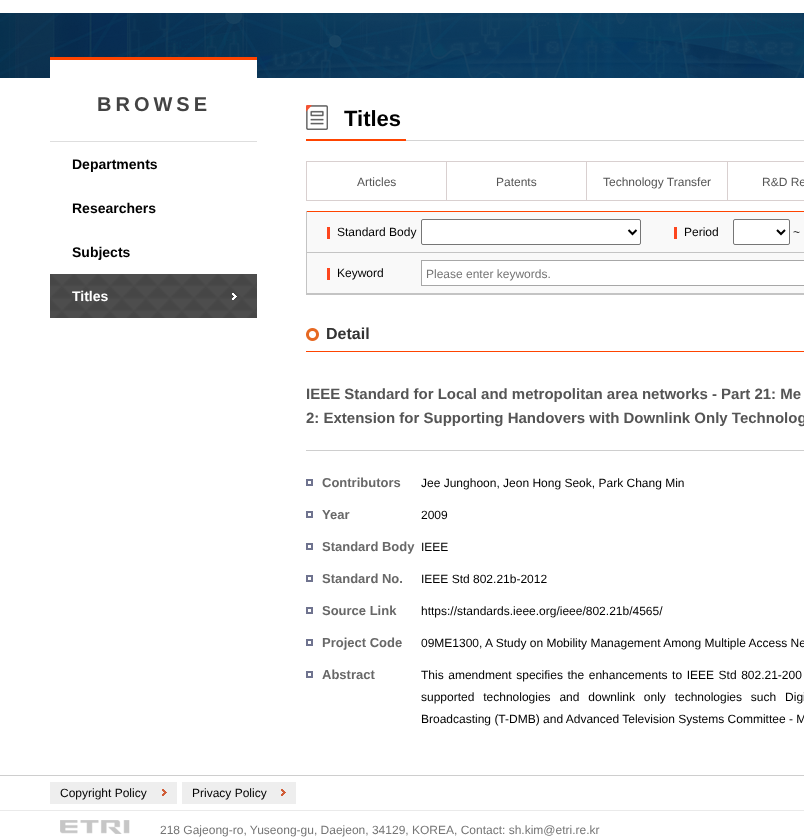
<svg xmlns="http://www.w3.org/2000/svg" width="804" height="840">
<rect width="100%" height="100%" fill="#fff"/>
<image x="0" y="13" width="804" height="65" href="media/1.png"/>
<rect x="50" y="60" width="207" height="18" fill="#fff"/>
<rect x="50" y="57" width="207" height="3" fill="#f40"/>
<rect x="50" y="141" width="207" height="1" fill="#dedede"/>
<text x="97" y="111" style="font-family:Liberation Sans;font-size:20px;font-weight:bold;letter-spacing:4px;fill:#434343">BROWSE</text>
<text x="72" y="169" style="font-family:Liberation Sans;font-size:14px;font-weight:bold;fill:#000">Departments</text>
<text x="72" y="213" style="font-family:Liberation Sans;font-size:14px;font-weight:bold;fill:#000">Researchers</text>
<text x="72" y="257" style="font-family:Liberation Sans;font-size:14px;font-weight:bold;fill:#000">Subjects</text>
<image x="50" y="274" width="207" height="44" href="media/2.png"/>
<image x="232" y="293" width="5" height="7" href="media/3.png"/>
<text x="72" y="301" style="font-family:Liberation Sans;font-size:14px;font-weight:bold;fill:#fff">Titles</text>
<rect x="406" y="140" width="398" height="1" fill="#d4d4d4"/>
<image x="306" y="105" width="22" height="25" href="media/4.png"/>
<rect x="306" y="139" width="100" height="2" fill="#f40"/>
<text x="344" y="126" style="font-family:Liberation Sans;font-size:22px;font-weight:bold;fill:#000">Titles</text>
<rect x="306.5" y="161.5" width="140" height="39" fill="none" stroke="#d9d0d0"/>
<text x="357" y="186" style="font-family:Liberation Sans;font-size:12px;fill:#555">Articles</text>
<rect x="446.5" y="161.5" width="140" height="39" fill="none" stroke="#d9d0d0"/>
<text x="496" y="186" style="font-family:Liberation Sans;font-size:12px;fill:#555">Patents</text>
<rect x="586.5" y="161.5" width="141" height="39" fill="none" stroke="#d9d0d0"/>
<text x="603" y="186" style="font-family:Liberation Sans;font-size:12px;fill:#555">Technology Transfer</text>
<rect x="727.5" y="161.5" width="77" height="39" fill="none" stroke="#d9d0d0"/>
<text x="762" y="186" style="font-family:Liberation Sans;font-size:12px;fill:#555">R&amp;D Re</text>
<rect x="307" y="212" width="497" height="81" fill="#f9f9f9"/>
<rect x="306" y="211" width="498" height="1" fill="#f40"/>
<rect x="306" y="294" width="498" height="1" fill="#c4c4c4"/>
<rect x="306" y="211" width="1" height="84" fill="#c4c4c4"/>
<rect x="327" y="227" width="3" height="12" fill="#fd461e"/>
<text x="337" y="236" style="font-family:Liberation Sans;font-size:12px;fill:#000">Standard Body</text>
<rect x="421.5" y="219.5" width="219" height="25" rx="1.5" fill="#fff" stroke="#767676"/>
<path d="M628.5 230l4 4l4-4" fill="none" stroke="#000" stroke-width="2"/>
<rect x="674" y="227" width="3" height="12" fill="#fd461e"/>
<text x="684" y="236" style="font-family:Liberation Sans;font-size:12px;fill:#000">Period</text>
<rect x="307" y="252" width="497" height="1" fill="#c4c4c4"/>
<rect x="733.5" y="219.5" width="56" height="25" rx="1.5" fill="#fff" stroke="#767676"/>
<path d="M777 230l4 4l4-4" fill="none" stroke="#000" stroke-width="2"/>
<text x="793" y="236" style="font-family:Liberation Sans;font-size:12px;fill:#000">~</text>
<rect x="327" y="268" width="3" height="12" fill="#fd461e"/>
<text x="337" y="277" style="font-family:Liberation Sans;font-size:12px;fill:#000">Keyword</text>
<rect x="307" y="293" width="497" height="1" fill="#c4c4c4"/>
<rect x="421.5" y="260.5" width="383" height="25" fill="#fff" stroke="#a7a7a7"/>
<text x="426" y="278" style="font-family:Liberation Sans;font-size:12px;fill:#757575">Please enter keywords.</text>
<rect x="306" y="351" width="498" height="1" fill="#f40"/>
<image x="306" y="328" width="13" height="13" href="media/5.png"/>
<text x="326" y="339" style="font-family:Liberation Sans;font-size:16px;font-weight:bold;fill:#333">Detail</text>
<text x="306" y="399" style="font-family:Liberation Sans;font-size:15px;font-weight:bold;fill:#555">IEEE Standard for Local and metropolitan area networks - Part 21: Me</text>
<text x="306" y="423" style="font-family:Liberation Sans;font-size:15px;font-weight:bold;fill:#555">2: Extension for Supporting Handovers with Downlink Only Technolog</text>
<rect x="306" y="450" width="498" height="1" fill="#cecece"/>
<image x="306" y="479" width="7" height="7" href="media/6.png"/>
<text x="322" y="487" style="font-family:Liberation Sans;font-size:13px;font-weight:bold;fill:#686868">Contributors</text>
<text x="421" y="487" style="font-family:Liberation Sans;font-size:12px;fill:#000">Jee Junghoon, Jeon Hong Seok, Park Chang Min</text>
<image x="306" y="511" width="7" height="7" href="media/6.png"/>
<text x="322" y="519" style="font-family:Liberation Sans;font-size:13px;font-weight:bold;fill:#686868">Year</text>
<text x="421" y="519" style="font-family:Liberation Sans;font-size:12px;fill:#000">2009</text>
<image x="306" y="543" width="7" height="7" href="media/6.png"/>
<text x="322" y="551" style="font-family:Liberation Sans;font-size:13px;font-weight:bold;fill:#686868">Standard Body</text>
<text x="421" y="551" style="font-family:Liberation Sans;font-size:12px;fill:#000">IEEE</text>
<image x="306" y="575" width="7" height="7" href="media/6.png"/>
<text x="322" y="583" style="font-family:Liberation Sans;font-size:13px;font-weight:bold;fill:#686868">Standard No.</text>
<text x="421" y="583" style="font-family:Liberation Sans;font-size:12px;fill:#000">IEEE Std 802.21b-2012</text>
<image x="306" y="607" width="7" height="7" href="media/6.png"/>
<text x="322" y="615" style="font-family:Liberation Sans;font-size:13px;font-weight:bold;fill:#686868">Source Link</text>
<text x="421" y="615" style="font-family:Liberation Sans;font-size:12px;fill:#000">https://standards.ieee.org/ieee/802.21b/4565/</text>
<image x="306" y="639" width="7" height="7" href="media/6.png"/>
<text x="322" y="647" style="font-family:Liberation Sans;font-size:13px;font-weight:bold;fill:#686868">Project Code</text>
<text x="421" y="647" style="font-family:Liberation Sans;font-size:12px;fill:#000">09ME1300, A Study on Mobility Management Among Multiple Access Ne</text>
<image x="306" y="671" width="7" height="7" href="media/6.png"/>
<text x="322" y="679" style="font-family:Liberation Sans;font-size:13px;font-weight:bold;fill:#686868">Abstract</text>
<text x="421" y="679" word-spacing="1.25" style="font-family:Liberation Sans;font-size:12px;fill:#000">This amendment specifies the enhancements to IEEE Std 802.21-200</text>
<text x="421" y="701" word-spacing="5.5" style="font-family:Liberation Sans;font-size:12px;fill:#000">supported technologies and downlink only technologies such Digi</text>
<text x="421" y="723" style="font-family:Liberation Sans;font-size:12px;fill:#000">Broadcasting (T-DMB) and Advanced Television Systems Committee - M</text>
<rect y="810" width="804" height="1" fill="#eaeaea"/>
<rect y="775" width="804" height="1" fill="#cecece"/>
<rect x="50" y="782" width="127" height="22" fill="#eee"/>
<image x="162" y="789" width="5" height="7" href="media/7.png"/>
<text x="60" y="797" style="font-family:Liberation Sans;font-size:12px;fill:#000">Copyright Policy</text>
<rect x="182" y="782" width="114" height="22" fill="#eee"/>
<image x="281" y="789" width="5" height="7" href="media/7.png"/>
<text x="192" y="797" style="font-family:Liberation Sans;font-size:12px;fill:#000">Privacy Policy</text>
<image x="60" y="820" width="70" height="14" href="media/8.png"/>
<text x="160" y="834" style="font-family:Liberation Sans;font-size:12px;fill:#757575">218 Gajeong-ro, Yuseong-gu, Daejeon, 34129, KOREA, Contact: sh.kim@etri.re.kr</text>
</svg>
